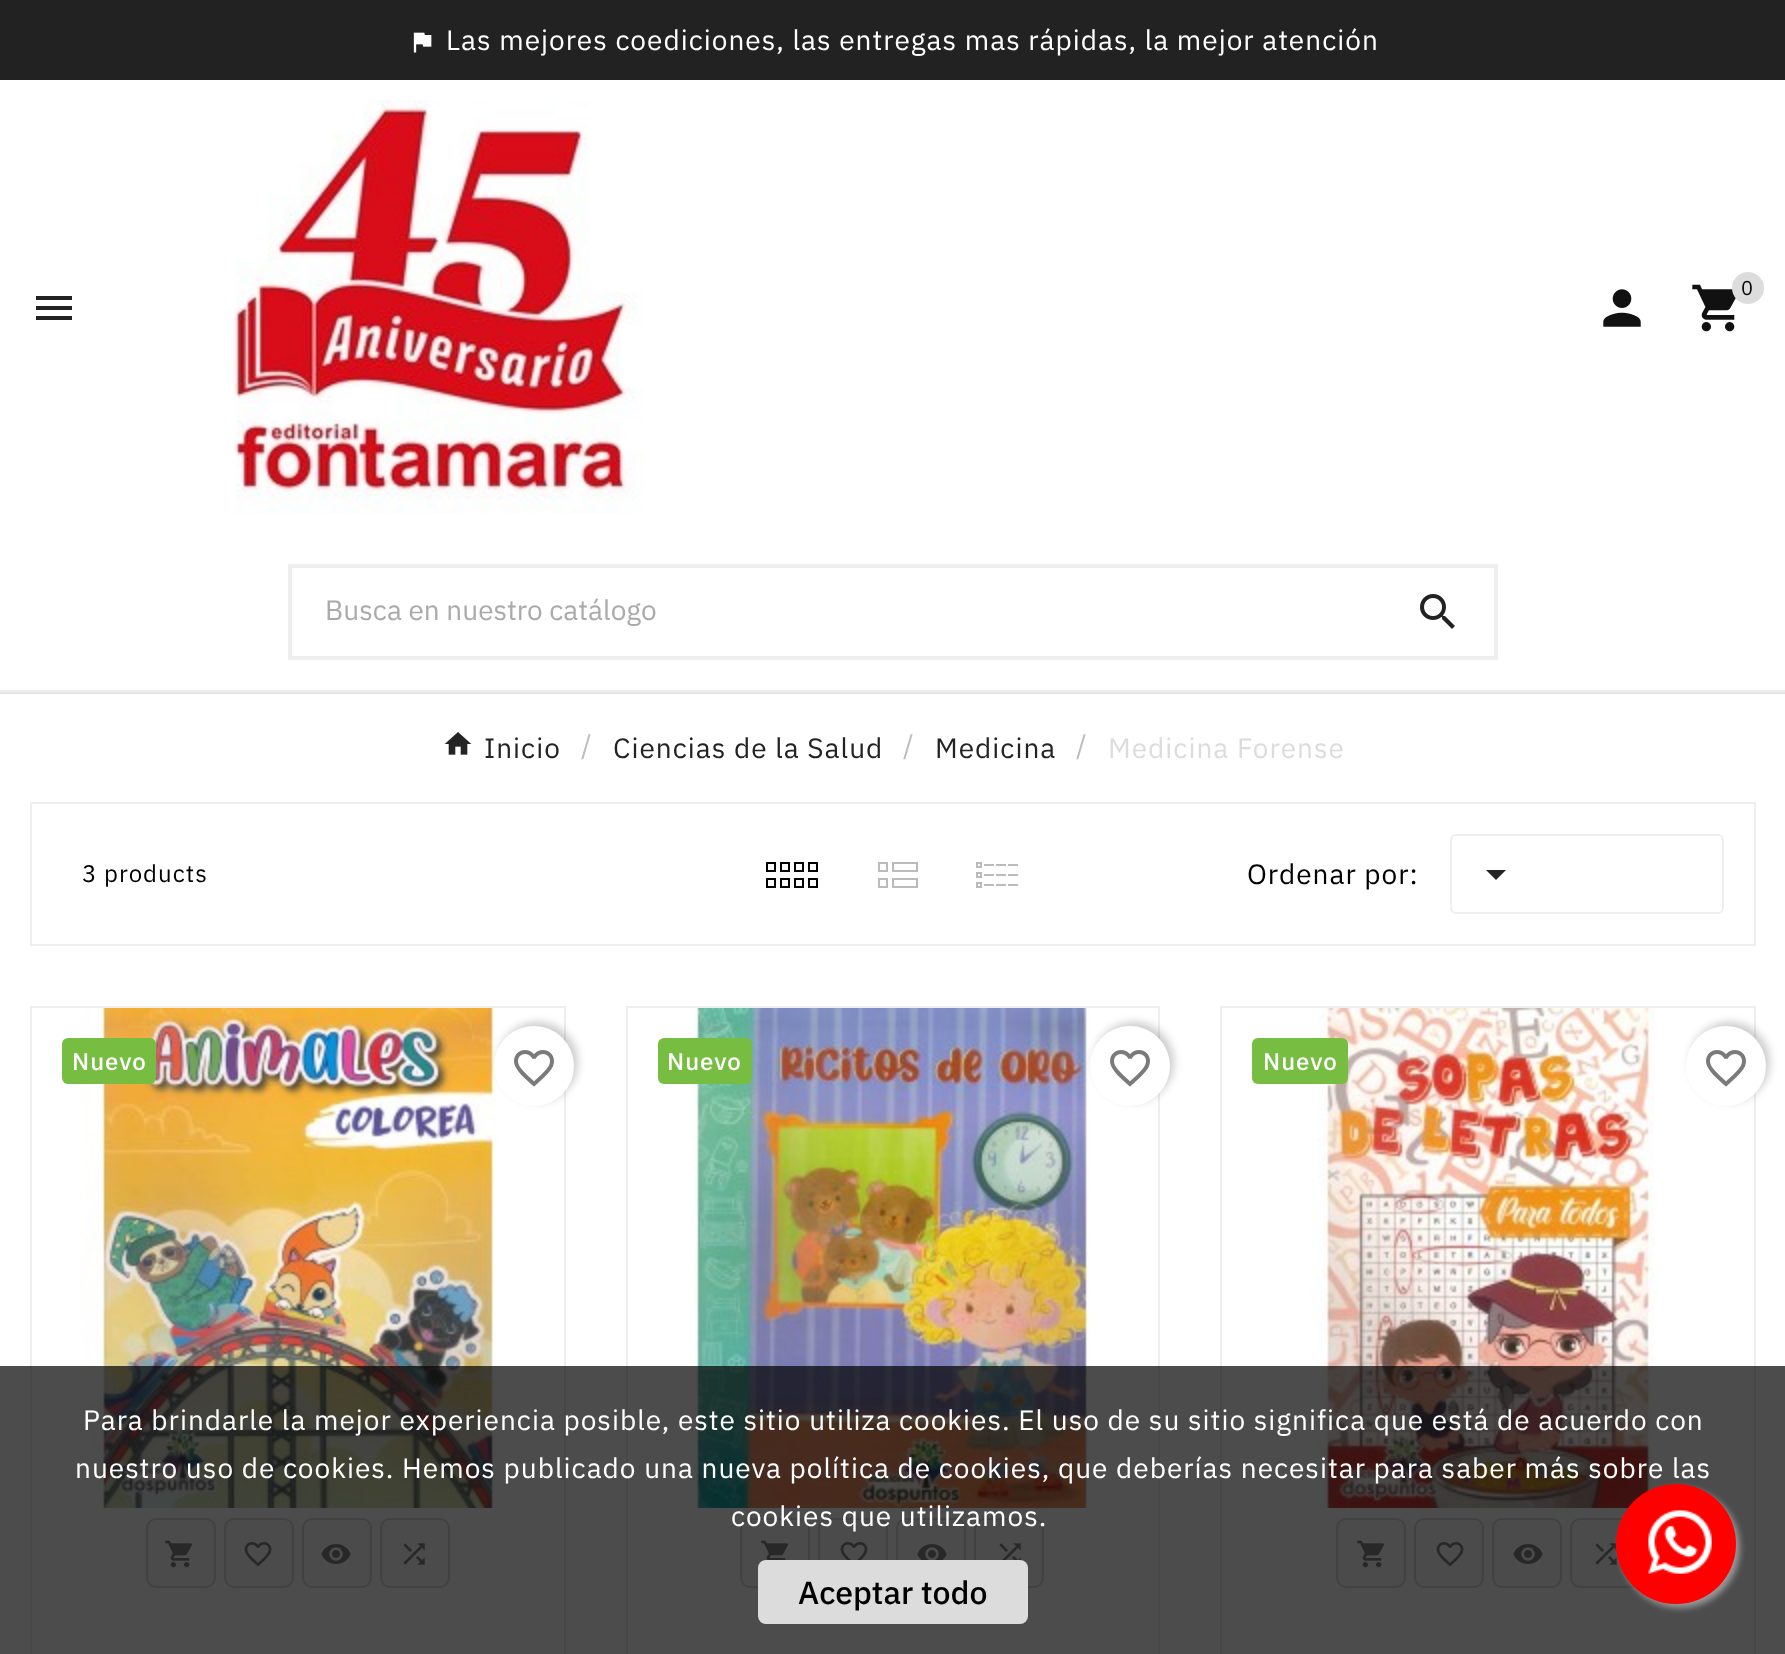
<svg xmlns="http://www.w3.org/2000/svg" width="1785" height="1654">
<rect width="100%" height="100%" fill="#fff"/>
<rect y="692" width="1785" height="2" fill="#e5e5e5"/>
<rect y="690" width="1785" height="2" fill="#ededed"/>
<rect width="1785" height="80" fill="#222"/>
<image x="413" y="32" width="19" height="21" href="media/1.png"/>
<text x="446" y="50" style="font-family:IBM Plex Sans;font-size:28px;letter-spacing:1px;fill:#fff">Las mejores coediciones, las entregas mas rápidas, la mejor atención</text>
<image x="233" y="100" width="411" height="414" href="media/2.png"/>
<image x="1603" y="289" width="38" height="38" href="media/3.png"/>
<image x="1692" y="284" width="44" height="48" href="media/4.png"/>
<circle cx="1748" cy="288" r="16" fill="#dcdcdc"/>
<text x="1741" y="295" style="font-family:IBM Plex Sans;font-size:20px;letter-spacing:1px;fill:#000">0</text>
<path d="M36 296h36v4h-36zm0 14v-4h36v4zm0 10v-4h36v4z" fill="#222"/>
<rect x="290" y="566" width="1206" height="92" fill="none" stroke="#eee" stroke-width="4"/>
<text x="325" y="620" style="font-family:IBM Plex Sans;font-size:28px;fill:#aaa">Busca en nuestro catálogo</text>
<image x="1420" y="594" width="35" height="35" href="media/5.png"/>
<image x="444" y="732" width="28" height="23" href="media/6.png"/>
<text x="484" y="758" style="font-family:IBM Plex Sans;font-size:28px;letter-spacing:1px;fill:#232323">Inicio</text>
<text x="581" y="755" style="font-family:IBM Plex Sans;font-size:28px;letter-spacing:1px;fill:#bdbdbd">/</text>
<text x="613" y="758" style="font-family:IBM Plex Sans;font-size:28px;letter-spacing:1px;fill:#232323">Ciencias de la Salud</text>
<text x="903" y="755" style="font-family:IBM Plex Sans;font-size:28px;letter-spacing:1px;fill:#bdbdbd">/</text>
<text x="935" y="758" style="font-family:IBM Plex Sans;font-size:28px;letter-spacing:1px;fill:#232323">Medicina</text>
<text x="1076" y="755" style="font-family:IBM Plex Sans;font-size:28px;letter-spacing:1px;fill:#bdbdbd">/</text>
<text x="1108" y="758" style="font-family:IBM Plex Sans;font-size:28px;letter-spacing:1px;fill:#dcdcdc">Medicina Forense</text>
<rect x="31" y="803" width="1724" height="142" fill="none" stroke="#eee" stroke-width="2"/>
<text x="82" y="882" style="font-family:IBM Plex Sans;font-size:24px;letter-spacing:1px;fill:#000">3 products</text>
<image x="766" y="862" width="52" height="26" href="media/7.png"/>
<image x="878" y="862" width="40" height="26" href="media/8.png"/>
<image x="976" y="862" width="42" height="26" href="media/9.png"/>
<text x="1247" y="884" style="font-family:IBM Plex Sans;font-size:28px;letter-spacing:1px;fill:#000">Ordenar por:</text>
<rect x="1451" y="835" width="272" height="78" rx="5" fill="none" stroke="#eee" stroke-width="2"/>
<path d="M1486 870h20l-10 10z" fill="#232323"/>
<rect x="31" y="1007" width="534" height="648" fill="none" stroke="#eee" stroke-width="2"/>
<image x="80" y="1008" width="417" height="500" href="media/10.png"/>
<rect x="62" y="1038" width="94" height="46" rx="6" fill="#76bd42"/>
<text x="72" y="1070" style="font-family:IBM Plex Sans;font-size:24px;font-weight:500;letter-spacing:1px;fill:#fff">Nuevo</text>
<rect x="147" y="1519" width="68" height="68" rx="9" fill="#fbfbfb" stroke="#ddd" stroke-width="2"/>
<image x="165" y="1540" width="27" height="28" href="media/11.png"/>
<rect x="225" y="1519" width="68" height="68" rx="9" fill="#fbfbfb" stroke="#ddd" stroke-width="2"/>
<image x="244" y="1542" width="28" height="25" href="media/12.png"/>
<rect x="303" y="1519" width="68" height="68" rx="9" fill="#fbfbfb" stroke="#ddd" stroke-width="2"/>
<image x="321" y="1544" width="30" height="20" href="media/13.png"/>
<rect x="381" y="1519" width="68" height="68" rx="9" fill="#fbfbfb" stroke="#ddd" stroke-width="2"/>
<image x="403" y="1543" width="22" height="22" href="media/14.png"/>
<rect x="498" y="1022" width="80" height="80" rx="40" fill="#00000033" filter="blur(4px)"/>
<circle cx="534" cy="1066" r="40" fill="#fff"/>
<image x="514" y="1050" width="40" height="37" href="media/15.png"/>
<rect x="627" y="1007" width="532" height="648" fill="none" stroke="#eee" stroke-width="2"/>
<image x="690" y="1008" width="400" height="500" href="media/16.png"/>
<rect x="658" y="1038" width="94" height="46" rx="6" fill="#76bd42"/>
<text x="667" y="1070" style="font-family:IBM Plex Sans;font-size:24px;font-weight:500;letter-spacing:1px;fill:#fff">Nuevo</text>
<rect x="741" y="1519" width="68" height="68" rx="9" fill="#fbfbfb" stroke="#ddd" stroke-width="2"/>
<image x="761" y="1540" width="27" height="20" href="media/17.png"/>
<rect x="819" y="1519" width="68" height="68" rx="9" fill="#fbfbfb" stroke="#ddd" stroke-width="2"/>
<image x="840" y="1542" width="28" height="18" href="media/18.png"/>
<rect x="897" y="1519" width="68" height="68" rx="9" fill="#fbfbfb" stroke="#ddd" stroke-width="2"/>
<image x="917" y="1544" width="30" height="16" href="media/19.png"/>
<rect x="975" y="1519" width="68" height="68" rx="9" fill="#fbfbfb" stroke="#ddd" stroke-width="2"/>
<image x="999" y="1543" width="22" height="18" href="media/20.png"/>
<rect x="1094" y="1022" width="80" height="80" rx="40" fill="#00000033" filter="blur(4px)"/>
<circle cx="1130" cy="1066" r="40" fill="#fff"/>
<image x="1110" y="1050" width="40" height="37" href="media/15.png"/>
<rect x="1221" y="1007" width="534" height="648" fill="none" stroke="#eee" stroke-width="2"/>
<image x="1311" y="1008" width="344" height="500" href="media/21.png"/>
<rect x="1252" y="1038" width="96" height="46" rx="6" fill="#76bd42"/>
<text x="1263" y="1070" style="font-family:IBM Plex Sans;font-size:24px;font-weight:500;letter-spacing:1px;fill:#fff">Nuevo</text>
<rect x="1337" y="1519" width="68" height="68" rx="9" fill="#fbfbfb" stroke="#ddd" stroke-width="2"/>
<image x="1357" y="1540" width="27" height="28" href="media/11.png"/>
<rect x="1415" y="1519" width="68" height="68" rx="9" fill="#fbfbfb" stroke="#ddd" stroke-width="2"/>
<image x="1436" y="1542" width="28" height="25" href="media/12.png"/>
<rect x="1493" y="1519" width="68" height="68" rx="9" fill="#fbfbfb" stroke="#ddd" stroke-width="2"/>
<image x="1513" y="1544" width="30" height="20" href="media/13.png"/>
<rect x="1571" y="1519" width="68" height="68" rx="9" fill="#fbfbfb" stroke="#ddd" stroke-width="2"/>
<image x="1595" y="1543" width="22" height="22" href="media/14.png"/>
<rect x="1690" y="1022" width="80" height="80" rx="40" fill="#00000033" filter="blur(4px)"/>
<circle cx="1726" cy="1066" r="40" fill="#fff"/>
<image x="1706" y="1050" width="40" height="37" href="media/15.png"/>
<rect y="1366" width="1785" height="288" fill="#000000b3"/>
<text x="83" y="1430" style="font-family:IBM Plex Sans;font-size:28px;letter-spacing:1px;fill:#fff">Para brindarle la mejor experiencia posible, este sitio utiliza cookies. El uso de su sitio significa que está de acuerdo con</text>
<text x="75" y="1478" style="font-family:IBM Plex Sans;font-size:28px;letter-spacing:1px;fill:#fff">nuestro uso de cookies. Hemos publicado una nueva política de cookies, que deberías necesitar para saber más sobre las</text>
<text x="731" y="1526" style="font-family:IBM Plex Sans;font-size:28px;letter-spacing:1px;fill:#fff">cookies que utilizamos.</text>
<rect x="758" y="1560" width="270" height="64" rx="8" fill="#dcdcdc"/>
<text x="798" y="1604" style="font-family:IBM Plex Sans;font-size:32px;font-weight:500;fill:#000">Aceptar todo</text>
<rect x="1620" y="1488" width="120" height="120" rx="60" fill="#999" filter="blur(3px)"/>
<circle cx="1676" cy="1544" r="60" fill="#f00"/>
<image x="1648" y="1510" width="64" height="64" href="media/22.png"/>
</svg>
